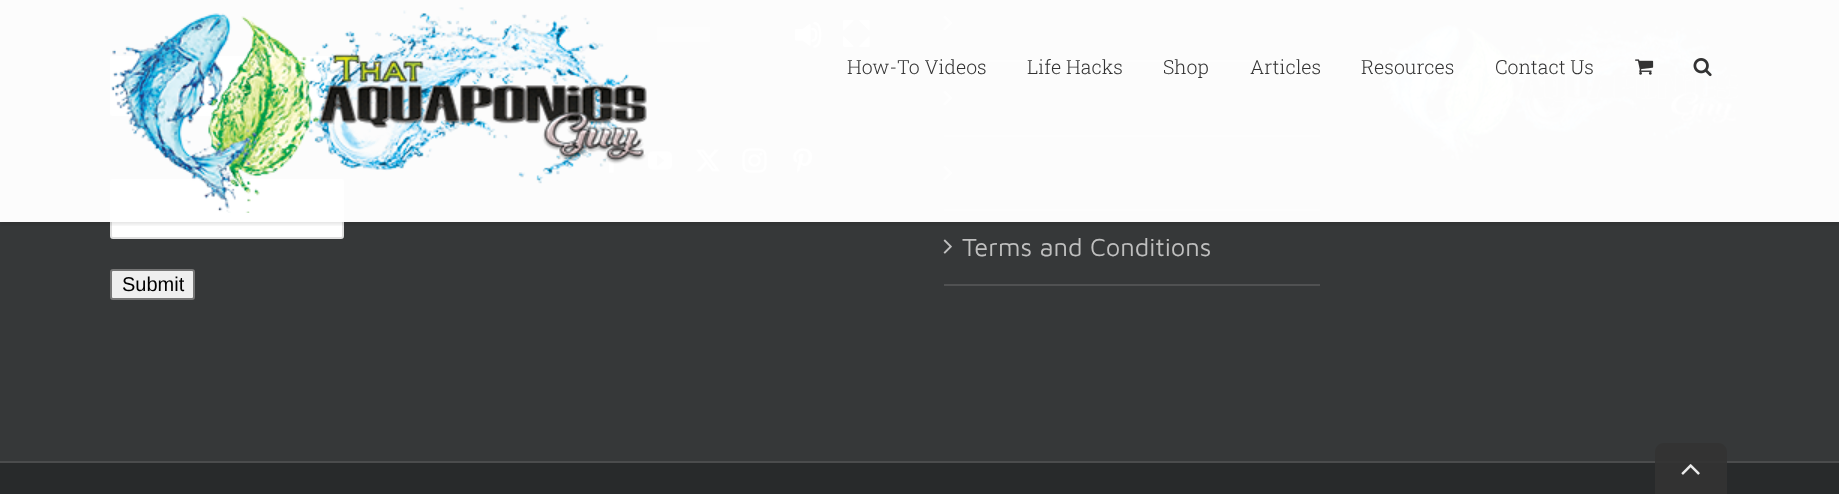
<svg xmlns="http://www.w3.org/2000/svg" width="1839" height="494">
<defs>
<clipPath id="clip1"><rect x="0" y="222" width="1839" height="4"/></clipPath>
</defs>
<rect width="100%" height="100%" fill="#363839"/>
<rect x="519" width="377" height="65" fill="#222"/>
<image x="549" y="21" width="20" height="24" href="media/4.png"/>
<rect x="657" y="27" width="53" height="15" fill="#6b6b6b"/>
<image x="795" y="22" width="27" height="26" href="media/5.png"/>
<image x="843" y="20" width="27" height="27" href="media/6.png"/>
<image x="606" y="148" width="12" height="25" href="media/7.png"/>
<image x="648" y="151" width="24" height="19" href="media/8.png"/>
<image x="696" y="149" width="24" height="23" href="media/9.png"/>
<image x="742" y="148" width="25" height="25" href="media/10.png"/>
<image x="793" y="148" width="19" height="25" href="media/11.png"/>
<image x="1379" y="21" width="360" height="139" href="media/12.png"/>
<rect x="944" y="60" width="376" height="2" fill="#505152"/>
<image x="943" y="16" width="9" height="15" href="media/13.png"/>
<rect x="944" y="135" width="376" height="2" fill="#505152"/>
<image x="943" y="91" width="9" height="15" href="media/13.png"/>
<rect x="944" y="209" width="376" height="2" fill="#505152"/>
<image x="943" y="166" width="9" height="15" href="media/13.png"/>
<rect x="111" y="57" width="232" height="58" rx="2" fill="#fff" stroke="#dfdfdf" stroke-width="2"/>
<rect x="111" y="180" width="232" height="58" rx="2" fill="#fff" stroke="#dfdfdf" stroke-width="2"/>
<g clip-path="url(#clip1)">
<rect y="2" width="1839" height="222" fill="#0000001f" filter="blur(2px)"/>
</g>
<rect width="1839" height="222" fill="#fffffffc"/>
<image x="111" y="7" width="536" height="206" href="media/1.png"/>
<text x="847" y="74" style="font-family:Roboto Slab;font-size:19.5px;font-weight:300;fill:#333">How-To Videos</text>
<text x="1027" y="74" style="font-family:Roboto Slab;font-size:19.5px;font-weight:300;fill:#333">Life Hacks</text>
<text x="1163" y="74" style="font-family:Roboto Slab;font-size:19.5px;font-weight:300;fill:#333">Shop</text>
<text x="1250" y="74" style="font-family:Roboto Slab;font-size:19.5px;font-weight:300;fill:#333">Articles</text>
<text x="1361" y="74" style="font-family:Roboto Slab;font-size:19.5px;font-weight:300;fill:#333">Resources</text>
<text x="1495" y="74" style="font-family:Roboto Slab;font-size:19.5px;font-weight:300;fill:#333">Contact Us</text>
<image x="1635" y="59" width="19" height="16" href="media/2.png"/>
<image x="1693" y="58" width="19" height="19" href="media/3.png"/>
<rect x="944" y="284" width="376" height="2" fill="#505152"/>
<image x="943" y="239" width="9" height="15" href="media/14.png"/>
<text x="962" y="256" style="font-family:Maven Pro;font-size:25.5px;fill:#bfbfbf">Terms and Conditions</text>
<rect x="111" y="270" width="83" height="29" rx="2" fill="#efefef" stroke="#767676" stroke-width="2"/>
<text x="122" y="291" style="font-family:Liberation Sans;font-size:20px;fill:#000">Submit</text>
<rect y="463" width="1839" height="31" fill="#282a2b"/>
<rect y="461" width="1839" height="2" fill="#4b4c4d"/>
<path d="M1664 443h54c5 0 9 4 9 9v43h-72v-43c0-5 4-9 9-9z" fill="#333333e6"/>
<image x="1681" y="464" width="19" height="11" href="media/15.png"/>
</svg>
